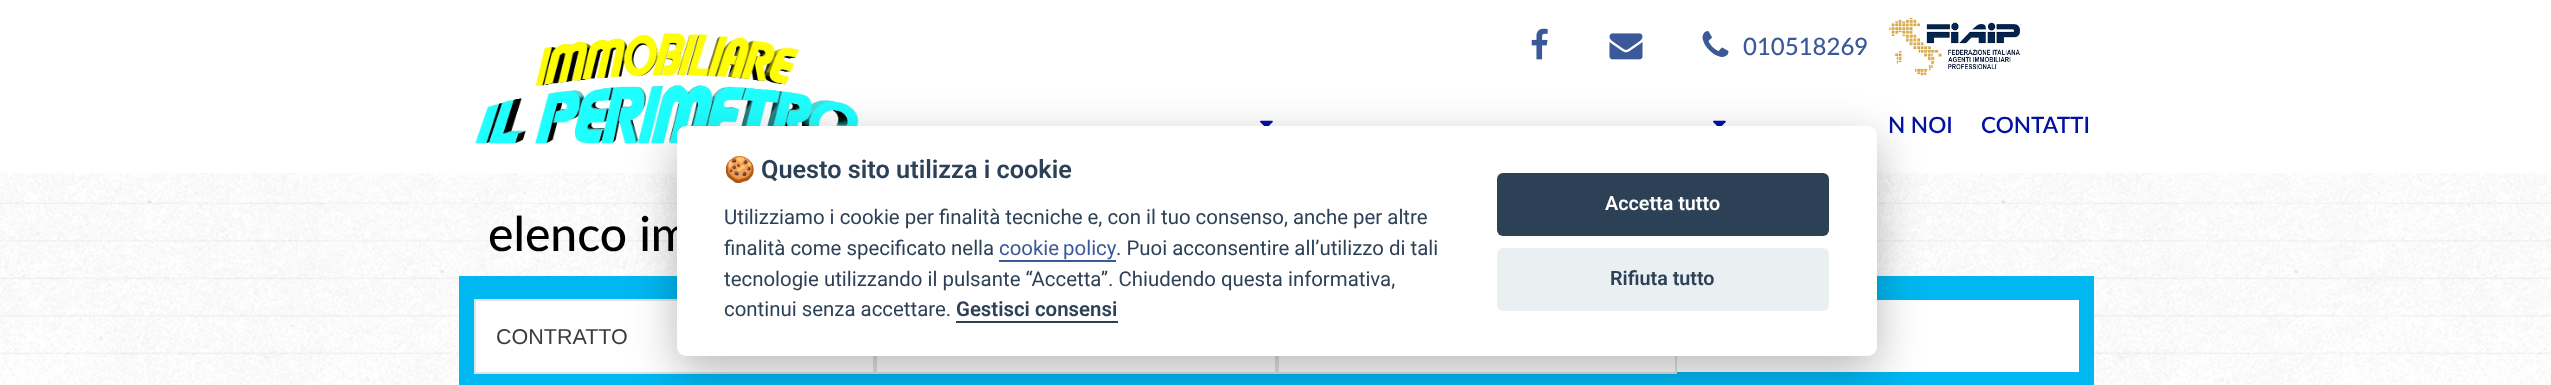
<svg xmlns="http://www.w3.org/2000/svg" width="2551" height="385">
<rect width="100%" height="100%" fill="#fff"/>
<image x="0" y="173" width="2551" height="212" href="media/1.png"/>
<image x="475" y="33" width="384" height="111" href="media/2.png"/>
<image x="1531" y="28" width="17" height="32" href="media/3.png"/>
<image x="1609" y="33" width="34" height="27" href="media/4.png"/>
<image x="1702" y="31" width="27" height="26" href="media/5.png"/>
<text x="1743" y="55" style="font-family:Lato;font-size:24px;font-weight:500;fill:#3b5998">010518269</text>
<image x="1888" y="17" width="134" height="59" href="media/6.png"/>
<image x="1260" y="120" width="13" height="6" href="media/7.png"/>
<image x="1713" y="120" width="13" height="6" href="media/7.png"/>
<text x="1888" y="133" style="font-family:Lato;font-size:22.5px;font-weight:600;fill:#02119f">N NOI</text>
<text x="1981" y="133" style="font-family:Lato;font-size:22.5px;font-weight:600;fill:#02119f">CONTATTI</text>
<text x="488" y="251" style="font-family:Lato;font-size:48px;font-weight:500;fill:#000">elenco im</text>
<rect x="459" y="276" width="1635" height="109" fill="#00b7f1"/>
<rect x="475" y="300" width="399" height="73" fill="#fff" stroke="#e2e2e2" stroke-width="2"/>
<rect x="877" y="356" width="398" height="16" fill="#fff"/>
<rect x="876" y="300" width="400" height="73" fill="none" stroke="#e2e2e2" stroke-width="2"/>
<rect x="1279" y="356" width="396" height="16" fill="#fff"/>
<rect x="1278" y="300" width="398" height="73" fill="none" stroke="#e2e2e2" stroke-width="2"/>
<rect x="1677" y="300" width="402" height="72" fill="#fff"/>
<rect x="677" y="141" width="1200" height="230" rx="9" fill="#02020347" filter="blur(22.5px)"/>
<rect x="677" y="126" width="1200" height="230" rx="9" fill="#fff"/>
<text x="724" y="178" style="font-family:Noto Color Emoji;font-size:25.25px;font-weight:bold;fill:#2d4156">🍪</text>
<text x="761" y="178" style="font-family:Roboto;font-size:25.25px;font-weight:600;fill:#2d4156">Questo sito utilizza i cookie</text>
<text x="724" y="224" style="font-family:Roboto;font-size:20.4px;fill:#2d4156">Utilizziamo i cookie per finalità tecniche e, con il tuo consenso, anche per altre</text>
<text x="724" y="255" style="font-family:Roboto;font-size:20.4px;fill:#2d4156">finalità come specificato nella</text>
<text x="999" y="255" word-spacing="-1" style="font-family:Roboto;font-size:20.4px;fill:#3b5998">cookie policy</text>
<rect x="999" y="260" width="117" height="2" fill="#3b5998"/>
<text x="1116" y="255" style="font-family:Roboto;font-size:20.4px;fill:#2d4156">. Puoi acconsentire all’utilizzo di tali</text>
<text x="724" y="286" style="font-family:Roboto;font-size:20.4px;fill:#2d4156">tecnologie utilizzando il pulsante “Accetta”. Chiudendo questa informativa,</text>
<text x="724" y="316" style="font-family:Roboto;font-size:20.4px;fill:#2d4156">continui senza accettare.</text>
<text x="956" y="316" style="font-family:Roboto;font-size:20.4px;font-weight:600;fill:#2d4156">Gestisci consensi</text>
<rect x="956" y="321" width="162" height="2" fill="#2d4156"/>
<rect x="1497" y="173" width="332" height="63" rx="6" fill="#2d4156"/>
<text x="1605" y="210" style="font-family:Roboto;font-size:19.75px;font-weight:600;fill:#fff">Accetta tutto</text>
<rect x="1497" y="248" width="332" height="63" rx="6" fill="#eaeff2"/>
<text x="1610" y="285" style="font-family:Roboto;font-size:19.75px;font-weight:600;fill:#2d4156">Rifiuta tutto</text>
<text x="496" y="344" style="font-family:Liberation Sans;font-size:21.5px;fill:#3b3b3b">CONTRATTO</text>
</svg>
